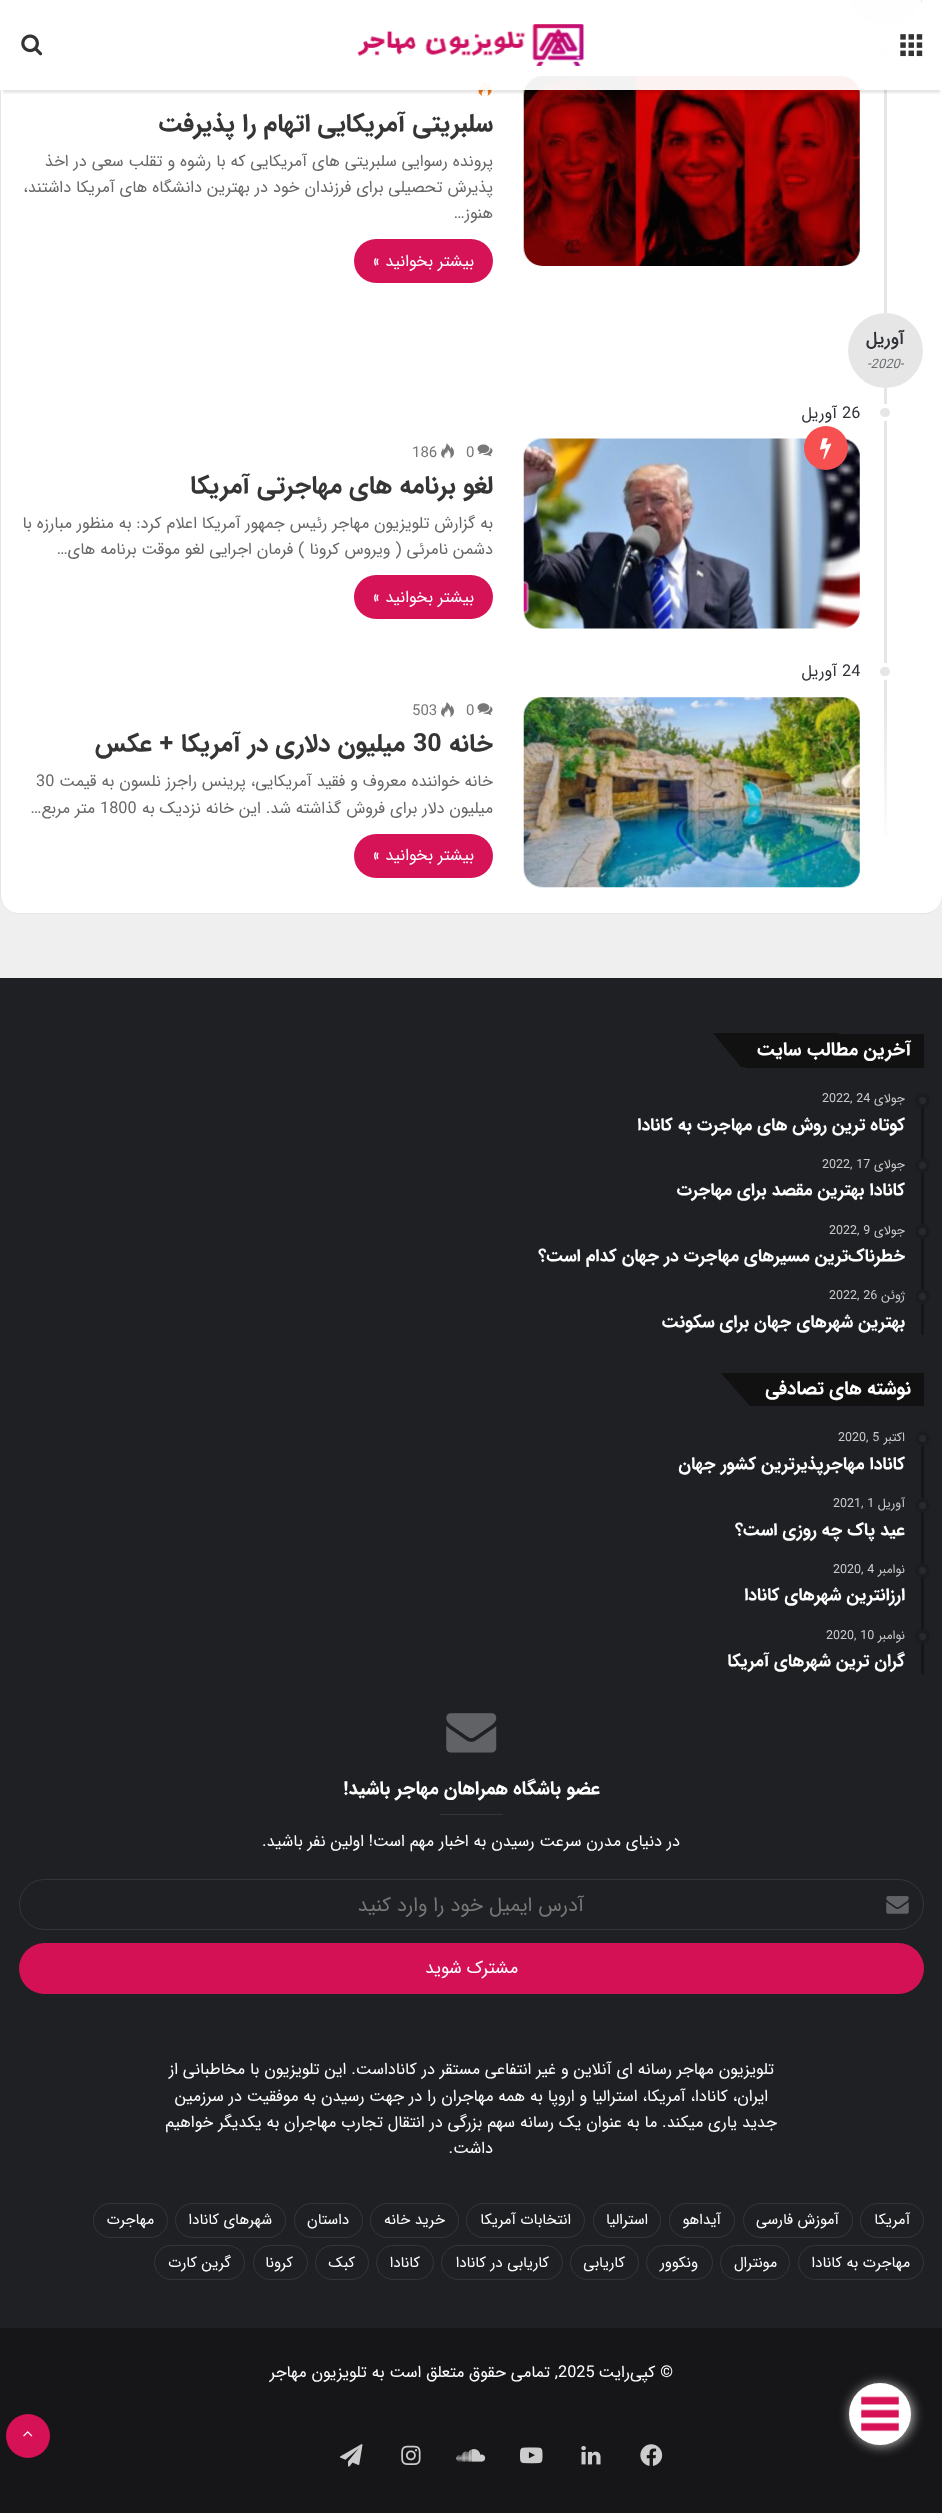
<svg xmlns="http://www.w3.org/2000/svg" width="942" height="2513">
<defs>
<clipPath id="clip1"><rect x="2" y="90" width="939" height="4"/></clipPath>
<linearGradient id="g1" gradientUnits="userSpaceOnUse" x1="885" y1="700" x2="885" y2="888"><stop offset="0" stop-color="#e5e5e5"/><stop offset="0.8" stop-color="#fff"/></linearGradient>
</defs>
<rect width="100%" height="100%" fill="#efefef"/>
<rect y="-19" width="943" height="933" rx="19" fill="#fff"/>
<rect x="0.5" y="-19.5" width="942" height="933" rx="18.5" fill="none" stroke="#0202021a"/>
<rect x="884" y="24" width="3" height="676" fill="#e6e6e6"/>
<rect x="848" y="-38" width="75" height="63" rx="37.5" fill="#e6e6e6"/>
<circle cx="885" cy="50" r="7" fill="#e6e6e6" stroke="#fff" stroke-width="4"/>
<image x="523" y="76" width="337" height="190" href="media/4.png"/>
<image x="478" y="81" width="14" height="15" href="media/5.png"/>
<g clip-path="url(#clip1)">
<rect x="3" y="8" width="937" height="85" fill="#0000001a" filter="blur(1px)"/>
</g>
<rect width="921" height="90" fill="#fffffff2"/>
<image x="900" y="34" width="23" height="23" href="media/1.png"/>
<image x="357" y="24" width="227" height="42" href="media/2.png"/>
<image x="21" y="34" width="22" height="22" href="media/3.png"/>
<text x="493" y="131" style="font-family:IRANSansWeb;font-size:25px;font-weight:bold;direction:rtl;fill:#353535">سلبریتی آمریکایی اتهام را پذیرفت</text>
<text x="493" y="166" style="font-family:IRANSansWeb;font-size:16.25px;direction:rtl;fill:#676767">پرونده رسوایی سلبریتی های آمریکایی که با رشوه و تقلب سعی در اخذ</text>
<text x="493" y="192" style="font-family:IRANSansWeb;font-size:16.25px;direction:rtl;fill:#676767">پذیرش تحصیلی برای فرزندان خود در بهترین دانشگاه های آمریکا داشتند،</text>
<text x="493" y="218" style="font-family:IRANSansWeb;font-size:16.25px;direction:rtl;fill:#676767">هنوز…</text>
<rect x="354" y="239" width="139" height="44" rx="22" fill="#d71357"/>
<text x="474" y="266" style="font-family:IRANSansWeb;font-size:16.25px;direction:rtl;fill:#fff">بیشتر بخوانید »</text>
<circle cx="885.5" cy="350.5" r="37.5" fill="#e6e6e6"/>
<text x="904" y="344" style="font-family:'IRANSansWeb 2';font-size:17.5px;font-weight:bold;direction:rtl;fill:#2e3136">آوریل</text>
<text x="867" y="368" style="font-family:IRANSansWeb;font-size:13px;font-style:italic;fill:#686a6d">-2020-</text>
<rect x="878" y="406" width="14" height="13" rx="6.5" fill="#e6e6e6" stroke="#fff" stroke-width="4"/>
<text x="842" y="418" style="font-family:IRANSansWeb;font-size:16.25px;fill:#2e3136">26</text>
<text x="837" y="418" style="font-family:IRANSansWeb;font-size:16.25px;direction:rtl;fill:#2e3136">آوریل</text>
<image x="523" y="438" width="337" height="191" href="media/7.png"/>
<circle cx="826" cy="448" r="22" fill="#f65050"/>
<image x="820" y="438" width="12" height="22" href="media/6.png"/>
<image x="477" y="444" width="16" height="13" href="media/8.png"/>
<text x="466" y="457" style="font-family:IRANSansWeb;font-size:15px;fill:#777">0</text>
<image x="441" y="443" width="13" height="16" href="media/9.png"/>
<text x="412" y="457" style="font-family:IRANSansWeb;font-size:15px;fill:#777">186</text>
<text x="493" y="493" style="font-family:IRANSansWeb;font-size:25px;font-weight:bold;direction:rtl;fill:#353535">لغو برنامه های مهاجرتی آمریکا</text>
<text x="493" y="528" style="font-family:IRANSansWeb;font-size:16.25px;direction:rtl;fill:#676767">به گزارش تلویزیون مهاجر رئیس جمهور آمریکا اعلام کرد: به منظور مبارزه با</text>
<text x="493" y="554" style="font-family:IRANSansWeb;font-size:16.25px;direction:rtl;fill:#676767">دشمن نامرئی ( ویروس کرونا ) فرمان اجرایی لغو موقت برنامه های…</text>
<rect x="354" y="575" width="139" height="44" rx="22" fill="#d71357"/>
<text x="474" y="602" style="font-family:IRANSansWeb;font-size:16.25px;direction:rtl;fill:#fff">بیشتر بخوانید »</text>
<rect x="884" y="700" width="3" height="136" fill="url(#g1)"/>
<rect x="878" y="665" width="14" height="13" rx="6.5" fill="#e6e6e6" stroke="#fff" stroke-width="4"/>
<text x="842" y="676" style="font-family:IRANSansWeb;font-size:16.25px;fill:#2e3136">24</text>
<text x="837" y="676" style="font-family:IRANSansWeb;font-size:16.25px;direction:rtl;fill:#2e3136">آوریل</text>
<image x="523" y="697" width="337" height="191" href="media/10.png"/>
<image x="477" y="703" width="16" height="12" href="media/11.png"/>
<text x="466" y="715" style="font-family:IRANSansWeb;font-size:15px;fill:#777">0</text>
<image x="441" y="702" width="13" height="15" href="media/12.png"/>
<text x="412" y="715" style="font-family:IRANSansWeb;font-size:15px;fill:#777">503</text>
<text x="493" y="751" style="font-family:IRANSansWeb;font-size:25px;font-weight:bold;direction:rtl;fill:#353535">خانه</text>
<text x="413" y="751" style="font-family:IRANSansWeb;font-size:25px;font-weight:bold;fill:#353535">30</text>
<text x="405" y="751" style="font-family:IRANSansWeb;font-size:25px;font-weight:bold;direction:rtl;fill:#353535">میلیون دلاری در آمریکا + عکس</text>
<text x="493" y="786" style="font-family:IRANSansWeb;font-size:16.25px;direction:rtl;fill:#676767">خانه خواننده معروف و فقید آمریکایی، پرینس راجرز نلسون به قیمت</text>
<text x="36" y="786" style="font-family:IRANSansWeb;font-size:16.25px;fill:#676767">30</text>
<text x="493" y="813" style="font-family:IRANSansWeb;font-size:16.25px;direction:rtl;fill:#676767">میلیون دلار برای فروش گذاشته شد. این خانه نزدیک به</text>
<text x="100" y="813" style="font-family:IRANSansWeb;font-size:16.25px;fill:#676767">1800</text>
<text x="95" y="813" style="font-family:IRANSansWeb;font-size:16.25px;direction:rtl;fill:#676767">متر مربع…</text>
<rect x="354" y="834" width="139" height="44" rx="22" fill="#d71357"/>
<text x="474" y="860" style="font-family:IRANSansWeb;font-size:16.25px;direction:rtl;fill:#fff">بیشتر بخوانید »</text>
<rect y="978" width="942" height="1350" fill="#1f2024"/>
<rect x="745" y="1034" width="179" height="34" fill="#111"/>
<path d="M713 1033h125l29 34h-126z" fill="#111"/>
<text x="911" y="1055" style="font-family:IRANSansWeb;font-size:18.75px;font-weight:bold;direction:rtl;fill:#fff">آخرین مطالب سایت</text>
<rect x="921" y="1093" width="3" height="242" fill="#161619"/>
<circle cx="922.5" cy="1100.5" r="7.5" fill="#27292d"/>
<circle cx="922.5" cy="1100.5" r="5.5" fill="none" stroke="#0000004d" stroke-width="4"/>
<text x="905" y="1102" style="font-family:IRANSansWeb;font-size:12.5px;direction:rtl;fill:#cacaca">جولای</text>
<text x="822" y="1102" style="font-family:IRANSansWeb;font-size:12.5px;fill:#cacaca">2022, 24</text>
<text x="905" y="1130" style="font-family:IRANSansWeb;font-size:17.5px;font-weight:bold;direction:rtl;fill:#fff">کوتاه ترین روش های مهاجرت به کانادا</text>
<circle cx="922.5" cy="1165.5" r="7.5" fill="#27292d"/>
<circle cx="922.5" cy="1165.5" r="5.5" fill="none" stroke="#0000004d" stroke-width="4"/>
<text x="905" y="1168" style="font-family:IRANSansWeb;font-size:12.5px;direction:rtl;fill:#cacaca">جولای</text>
<text x="822" y="1168" style="font-family:IRANSansWeb;font-size:12.5px;fill:#cacaca">2022, 17</text>
<text x="905" y="1195" style="font-family:IRANSansWeb;font-size:17.5px;font-weight:bold;direction:rtl;fill:#fff">کانادا بهترین مقصد برای مهاجرت</text>
<circle cx="922.5" cy="1231.5" r="7.5" fill="#27292d"/>
<circle cx="922.5" cy="1231.5" r="5.5" fill="none" stroke="#0000004d" stroke-width="4"/>
<text x="905" y="1234" style="font-family:IRANSansWeb;font-size:12.5px;direction:rtl;fill:#cacaca">جولای</text>
<text x="829" y="1234" style="font-family:IRANSansWeb;font-size:12.5px;fill:#cacaca">2022, 9</text>
<text x="905" y="1261" style="font-family:IRANSansWeb;font-size:17.5px;font-weight:bold;direction:rtl;fill:#fff">خطرناک‌ترین مسیر‌های مهاجرت در جهان کدام است؟</text>
<circle cx="922.5" cy="1296.5" r="7.5" fill="#27292d"/>
<circle cx="922.5" cy="1296.5" r="5.5" fill="none" stroke="#0000004d" stroke-width="4"/>
<text x="905" y="1299" style="font-family:IRANSansWeb;font-size:12.5px;direction:rtl;fill:#cacaca">ژوئن</text>
<text x="829" y="1299" style="font-family:IRANSansWeb;font-size:12.5px;fill:#cacaca">2022, 26</text>
<text x="905" y="1327" style="font-family:IRANSansWeb;font-size:17.5px;font-weight:bold;direction:rtl;fill:#fff">بهترین شهرهای جهان برای سکونت</text>
<rect x="841" y="1373" width="83" height="33" fill="#111"/>
<path d="M721 1373h120l28 33h-119z" fill="#111"/>
<text x="911" y="1394" style="font-family:IRANSansWeb;font-size:18.75px;font-weight:bold;direction:rtl;fill:#fff">نوشته های تصادفی</text>
<rect x="921" y="1431" width="3" height="243" fill="#161619"/>
<circle cx="922.5" cy="1438.5" r="7.5" fill="#27292d"/>
<circle cx="922.5" cy="1438.5" r="5.5" fill="none" stroke="#0000004d" stroke-width="4"/>
<text x="905" y="1441" style="font-family:IRANSansWeb;font-size:12.5px;direction:rtl;fill:#cacaca">اکتبر</text>
<text x="838" y="1441" style="font-family:IRANSansWeb;font-size:12.5px;fill:#cacaca">2020, 5</text>
<text x="905" y="1469" style="font-family:IRANSansWeb;font-size:17.5px;font-weight:bold;direction:rtl;fill:#fff">کانادا مهاجرپذیرترین کشور جهان</text>
<circle cx="922.5" cy="1505.5" r="7.5" fill="#27292d"/>
<circle cx="922.5" cy="1505.5" r="5.5" fill="none" stroke="#0000004d" stroke-width="4"/>
<text x="905" y="1507" style="font-family:IRANSansWeb;font-size:12.5px;direction:rtl;fill:#cacaca">آوریل</text>
<text x="833" y="1507" style="font-family:IRANSansWeb;font-size:12.5px;fill:#cacaca">2021, 1</text>
<text x="905" y="1535" style="font-family:IRANSansWeb;font-size:17.5px;font-weight:bold;direction:rtl;fill:#fff">عید پاک چه روزی است؟</text>
<circle cx="922.5" cy="1570.5" r="7.5" fill="#27292d"/>
<circle cx="922.5" cy="1570.5" r="5.5" fill="none" stroke="#0000004d" stroke-width="4"/>
<text x="905" y="1573" style="font-family:IRANSansWeb;font-size:12.5px;direction:rtl;fill:#cacaca">نوامبر</text>
<text x="833" y="1573" style="font-family:IRANSansWeb;font-size:12.5px;fill:#cacaca">2020, 4</text>
<text x="905" y="1600" style="font-family:IRANSansWeb;font-size:17.5px;font-weight:bold;direction:rtl;fill:#fff">ارزانترین شهرهای کانادا</text>
<circle cx="922.5" cy="1636.5" r="7.5" fill="#27292d"/>
<circle cx="922.5" cy="1636.5" r="5.5" fill="none" stroke="#0000004d" stroke-width="4"/>
<text x="905" y="1639" style="font-family:IRANSansWeb;font-size:12.5px;direction:rtl;fill:#cacaca">نوامبر</text>
<text x="826" y="1639" style="font-family:IRANSansWeb;font-size:12.5px;fill:#cacaca">2020, 10</text>
<text x="905" y="1666" style="font-family:IRANSansWeb;font-size:17.5px;font-weight:bold;direction:rtl;fill:#fff">گران ترین شهرهای آمریکا</text>
<image x="446" y="1713" width="51" height="40" href="media/13.png"/>
<text x="600" y="1794" style="font-family:IRANSansWeb;font-size:18.75px;font-weight:bold;direction:rtl;fill:#fff">عضو باشگاه همراهان مهاجر باشید!</text>
<rect x="440" y="1814" width="63" height="1" fill="#35363a"/>
<text x="680" y="1846" style="font-family:IRANSansWeb;font-size:16.25px;direction:rtl;fill:#fff">در دنیای مدرن سرعت رسیدن به اخبار مهم است! اولین نفر باشید.</text>
<rect x="19.5" y="1879.5" width="904" height="50" rx="25" fill="none" stroke="#35363a"/>
<image x="886" y="1896" width="23" height="18" href="media/14.png"/>
<text x="584" y="1911" style="font-family:IRANSansWeb;font-size:20px;direction:rtl;fill:#777">آدرس ایمیل خود را وارد کنید</text>
<rect x="19" y="1943" width="905" height="51" rx="25.5" fill="#d51155"/>
<text x="518" y="1973" style="font-family:IRANSansWeb;font-size:17.5px;direction:rtl;fill:#fff">مشترک شوید</text>
<text x="774" y="2074" style="font-family:IRANSansWeb;font-size:16.25px;direction:rtl;fill:#fff">تلویزیون مهاجر رسانه ای آنلاین و غیر انتفاعی مستقر در کاناداست. این تلویزیون با مخاطبانی از</text>
<text x="768" y="2101" style="font-family:IRANSansWeb;font-size:16.25px;direction:rtl;fill:#fff">ایران، کانادا، آمریکا، استرالیا و اروپا به همه مهاجران را در جهت رسیدن به موفقیت در سرزمین</text>
<text x="777" y="2127" style="font-family:IRANSansWeb;font-size:16.25px;direction:rtl;fill:#fff">جدید یاری میکند. ما به عنوان یک رسانه سهم بزرگی در انتقال تجارب مهاجران به یکدیگر خواهیم</text>
<text x="493" y="2153" style="font-family:IRANSansWeb;font-size:16.25px;direction:rtl;fill:#fff">داشت.</text>
<rect x="860.5" y="2203.5" width="63" height="34" rx="17" fill="none" stroke="#35363a"/>
<text x="910" y="2224" style="font-family:IRANSansWeb;font-size:15px;direction:rtl;fill:#fff">آمریکا</text>
<rect x="743.5" y="2203.5" width="109" height="34" rx="17" fill="none" stroke="#35363a"/>
<text x="839" y="2224" style="font-family:IRANSansWeb;font-size:15px;direction:rtl;fill:#fff">آموزش فارسی</text>
<rect x="669.5" y="2203.5" width="65" height="34" rx="17" fill="none" stroke="#35363a"/>
<text x="721" y="2224" style="font-family:IRANSansWeb;font-size:15px;direction:rtl;fill:#fff">آیداهو</text>
<rect x="593.5" y="2203.5" width="67" height="34" rx="17" fill="none" stroke="#35363a"/>
<text x="648" y="2224" style="font-family:IRANSansWeb;font-size:15px;direction:rtl;fill:#fff">استرالیا</text>
<rect x="466.5" y="2203.5" width="118" height="34" rx="17" fill="none" stroke="#35363a"/>
<text x="571" y="2224" style="font-family:IRANSansWeb;font-size:15px;direction:rtl;fill:#fff">انتخابات آمریکا</text>
<rect x="370.5" y="2203.5" width="88" height="34" rx="17" fill="none" stroke="#35363a"/>
<text x="445" y="2224" style="font-family:IRANSansWeb;font-size:15px;direction:rtl;fill:#fff">خرید خانه</text>
<rect x="294.5" y="2203.5" width="68" height="34" rx="17" fill="none" stroke="#35363a"/>
<text x="349" y="2224" style="font-family:IRANSansWeb;font-size:15px;direction:rtl;fill:#fff">داستان</text>
<rect x="175.5" y="2203.5" width="110" height="34" rx="17" fill="none" stroke="#35363a"/>
<text x="272" y="2224" style="font-family:IRANSansWeb;font-size:15px;direction:rtl;fill:#fff">شهرهای کانادا</text>
<rect x="93.5" y="2203.5" width="74" height="34" rx="17" fill="none" stroke="#35363a"/>
<text x="154" y="2224" style="font-family:IRANSansWeb;font-size:15px;direction:rtl;fill:#fff">مهاجرت</text>
<rect x="798.5" y="2245.5" width="125" height="34" rx="17" fill="none" stroke="#35363a"/>
<text x="910" y="2267" style="font-family:IRANSansWeb;font-size:15px;direction:rtl;fill:#fff">مهاجرت به کانادا</text>
<rect x="720.5" y="2245.5" width="69" height="34" rx="17" fill="none" stroke="#35363a"/>
<text x="777" y="2267" style="font-family:IRANSansWeb;font-size:15px;direction:rtl;fill:#fff">مونترال</text>
<rect x="646.5" y="2245.5" width="66" height="34" rx="17" fill="none" stroke="#35363a"/>
<text x="698" y="2267" style="font-family:IRANSansWeb;font-size:15px;direction:rtl;fill:#fff">ونکوور</text>
<rect x="570.5" y="2245.5" width="68" height="34" rx="17" fill="none" stroke="#35363a"/>
<text x="625" y="2267" style="font-family:IRANSansWeb;font-size:15px;direction:rtl;fill:#fff">کاریابی</text>
<rect x="441.5" y="2245.5" width="121" height="34" rx="17" fill="none" stroke="#35363a"/>
<text x="549" y="2267" style="font-family:IRANSansWeb;font-size:15px;direction:rtl;fill:#fff">کاریابی در کانادا</text>
<rect x="376.5" y="2245.5" width="57" height="34" rx="17" fill="none" stroke="#35363a"/>
<text x="420" y="2267" style="font-family:IRANSansWeb;font-size:15px;direction:rtl;fill:#fff">کانادا</text>
<rect x="315.5" y="2245.5" width="53" height="34" rx="17" fill="none" stroke="#35363a"/>
<text x="355" y="2267" style="font-family:IRANSansWeb;font-size:15px;direction:rtl;fill:#fff">کبک</text>
<rect x="253.5" y="2245.5" width="54" height="34" rx="17" fill="none" stroke="#35363a"/>
<text x="293" y="2267" style="font-family:IRANSansWeb;font-size:15px;direction:rtl;fill:#fff">کرونا</text>
<rect x="154.5" y="2245.5" width="90" height="34" rx="17" fill="none" stroke="#35363a"/>
<text x="231" y="2267" style="font-family:IRANSansWeb;font-size:15px;direction:rtl;fill:#fff">گرین کارت</text>
<rect y="2328" width="942" height="185" fill="#161619"/>
<text x="673" y="2377" style="font-family:IRANSansWeb;font-size:16.25px;direction:rtl;fill:#fff">© کپی‌رایت</text>
<text x="558" y="2377" style="font-family:IRANSansWeb;font-size:16.25px;fill:#fff">2025</text>
<text x="558" y="2377" style="font-family:IRANSansWeb;font-size:16.25px;direction:rtl;fill:#fff">, تمامی حقوق متعلق است به تلویزیون مهاجر</text>
<image x="640" y="2444" width="23" height="22" href="media/15.png"/>
<image x="581" y="2446" width="20" height="19" href="media/16.png"/>
<image x="520" y="2447" width="23" height="17" href="media/17.png"/>
<image x="456" y="2449" width="30" height="13" href="media/18.png"/>
<image x="401" y="2445" width="20" height="20" href="media/19.png"/>
<image x="340" y="2444" width="23" height="23" href="media/20.png"/>
<circle cx="28" cy="2436" r="22" fill="#d71155"/>
<image x="23" y="2431" width="10" height="6" href="media/21.png"/>
<rect x="850" y="2384" width="63" height="62" rx="31" fill="#b4b4b4" filter="blur(6px)"/>
<circle cx="880" cy="2414" r="31" fill="#fff"/>
<image x="861" y="2396" width="38" height="36" href="media/22.png"/>
</svg>
